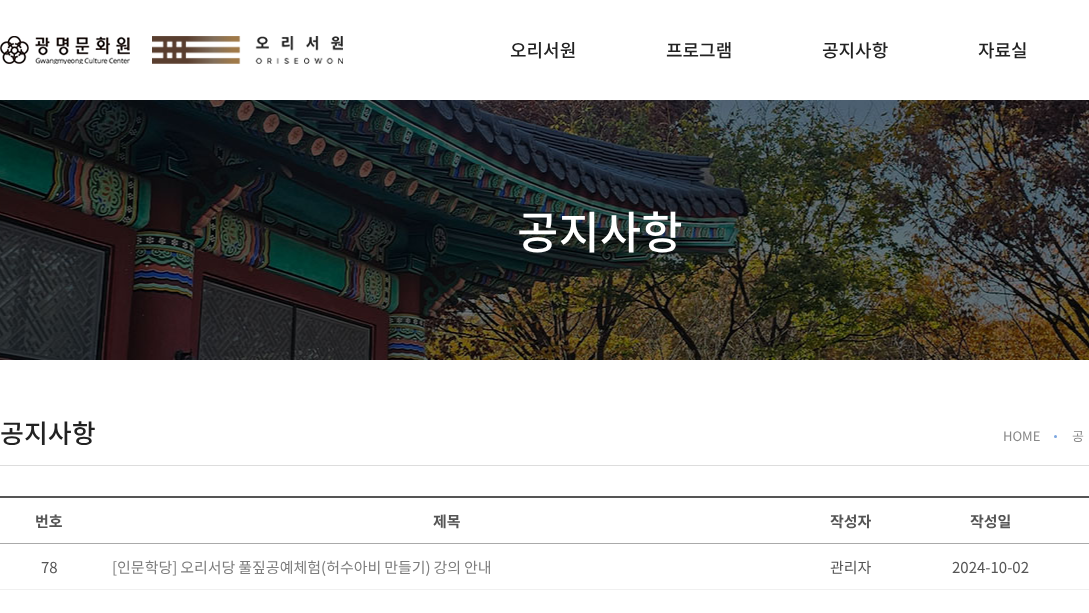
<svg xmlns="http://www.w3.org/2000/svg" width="1089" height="613">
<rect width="100%" height="100%" fill="#fff"/>
<image x="0" y="36" width="343" height="28" href="media/1.png"/>
<text x="510" y="57" style="font-family:Noto Sans KR;font-size:18px;font-weight:500;fill:#222">오리서원</text>
<text x="666" y="57" style="font-family:Noto Sans KR;font-size:18px;font-weight:500;fill:#222">프로그램</text>
<text x="822" y="57" style="font-family:Noto Sans KR;font-size:18px;font-weight:500;fill:#222">공지사항</text>
<text x="978" y="57" style="font-family:Noto Sans KR;font-size:18px;font-weight:500;fill:#222">자료실</text>
<image x="0" y="100" width="1089" height="260" href="media/2.png"/>
<text x="517" y="249" style="font-family:Noto Sans KR;font-size:45px;font-weight:500;fill:#fff">공지사항</text>
<rect y="465" width="1089" height="1" fill="#ddd"/>
<text x="0" y="443" style="font-family:Noto Sans KR;font-size:26px;font-weight:500;fill:#222">공지사항</text>
<text x="1003" y="441" style="font-family:Noto Sans KR;font-size:13px;fill:#888">HOME</text>
<circle cx="1055.5" cy="436.5" r="1.5" fill="#7ba6e0"/>
<text x="1072" y="441" style="font-family:Noto Sans KR;font-size:13px;fill:#888">공</text>
<rect y="496" width="1089" height="2" fill="#555"/>
<text x="35" y="527" style="font-family:Noto Sans KR;font-size:15px;font-weight:bold;fill:#555">번호</text>
<text x="433" y="527" style="font-family:Noto Sans KR;font-size:15px;font-weight:bold;fill:#555">제목</text>
<text x="830" y="527" style="font-family:Noto Sans KR;font-size:15px;font-weight:bold;fill:#555">작성자</text>
<text x="970" y="527" style="font-family:Noto Sans KR;font-size:15px;font-weight:bold;fill:#555">작성일</text>
<rect y="543" width="1089" height="1" fill="#aaa"/>
<text x="41" y="573" style="font-family:Noto Sans KR;font-size:15px;fill:#555">78</text>
<text x="112" y="573" word-spacing="-0.5" style="font-family:Noto Sans KR;font-size:15px;fill:#7d7d7d">[인문학당] 오리서당 풀짚공예체험(허수아비 만들기) 강의 안내</text>
<text x="830" y="573" style="font-family:Noto Sans KR;font-size:15px;fill:#555">관리자</text>
<text x="952" y="573" style="font-family:Noto Sans KR;font-size:15px;fill:#555">2024-10-02</text>
<rect y="589" width="1089" height="1" fill="#f0f0f0"/>
</svg>
